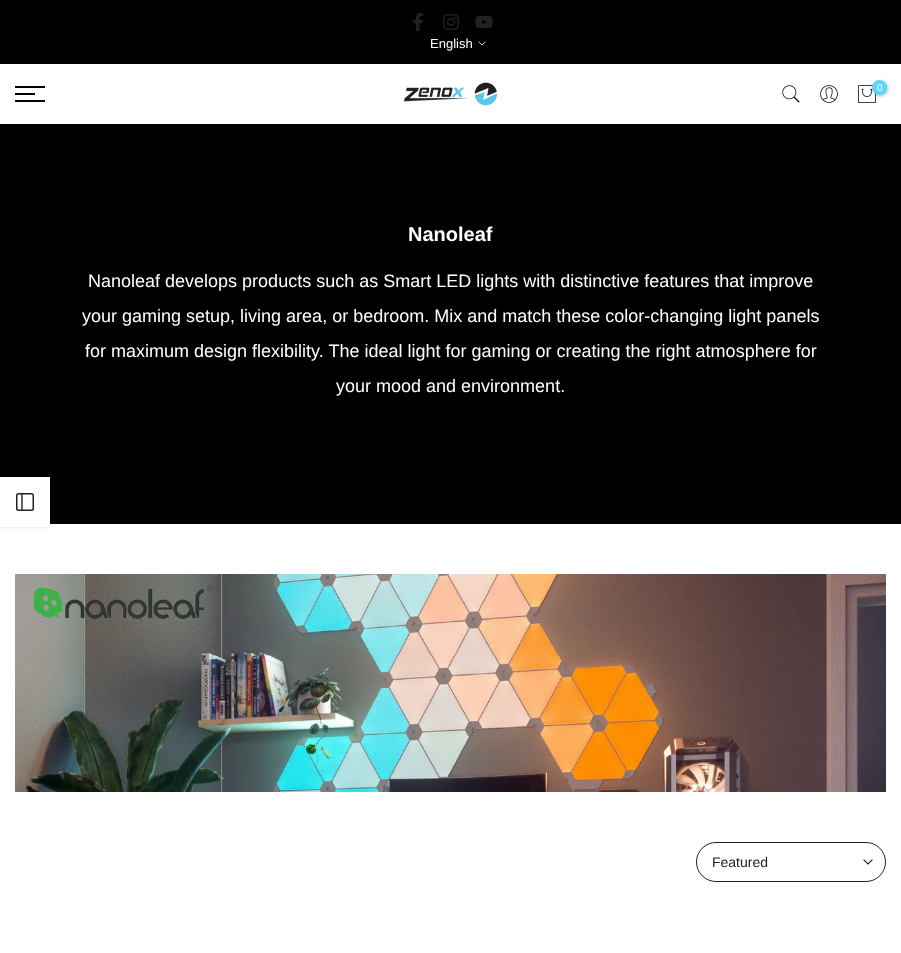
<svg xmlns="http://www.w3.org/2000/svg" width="901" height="953">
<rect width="100%" height="100%" fill="#fff"/>
<rect width="901" height="64" fill="#000"/>
<image x="413" y="13" width="10" height="18" href="media/1.png"/>
<image x="443" y="14" width="16" height="16" href="media/2.png"/>
<image x="475" y="16" width="18" height="12" href="media/3.png"/>
<text x="430" y="48" style="font-family:Liberation Sans;font-size:13px;fill:#fff">English</text>
<path d="M485 42l-3 3l-3-3" fill="none" stroke="#fff" stroke-width="0.8" stroke-linecap="square"/>
<rect x="15" y="86" width="30" height="2" fill="#000"/>
<rect x="15" y="93" width="20" height="2" fill="#000"/>
<rect x="15" y="100" width="30" height="2" fill="#000"/>
<image x="404" y="82" width="94" height="24" href="media/4.png"/>
<image x="782" y="85" width="18" height="18" href="media/5.png"/>
<image x="820" y="85" width="18" height="18" href="media/6.png"/>
<image x="858" y="85" width="18" height="18" href="media/7.png"/>
<rect x="873" y="81" width="15" height="15" rx="7.5" fill="#0000004d" filter="blur(1.5px)"/>
<circle cx="879.5" cy="87.5" r="7.5" fill="#5bd7ff"/>
<text x="877" y="91" style="font-family:Liberation Sans;font-size:10px;fill:#fff">0</text>
<rect y="124" width="901" height="400" fill="#000"/>
<text x="408" y="241" style="font-family:Liberation Sans;font-size:20px;font-weight:bold;fill:#fff">Nanoleaf</text>
<text x="88" y="287" style="font-family:Liberation Sans;font-size:18px;fill:#fff">Nanoleaf develops products such as Smart LED lights with distinctive features that improve</text>
<text x="82" y="322" style="font-family:Liberation Sans;font-size:18px;fill:#fff">your gaming setup, living area, or bedroom. Mix and match these color-changing light panels</text>
<text x="85" y="357" style="font-family:Liberation Sans;font-size:18px;fill:#fff">for maximum design flexibility. The ideal light for gaming or creating the right atmosphere for</text>
<text x="336" y="392" style="font-family:Liberation Sans;font-size:18px;fill:#fff">your mood and environment.</text>
<rect y="477" width="50" height="50" fill="#00000026" filter="blur(1.5px)"/>
<rect y="477" width="50" height="50" fill="#fff"/>
<rect x="16.75" y="493.75" width="16.5" height="16.5" rx="1.75" fill="none" stroke="#222" stroke-width="1.5"/>
<path d="M22 494v16" fill="none" stroke="#222" stroke-width="1.4" stroke-linecap="round" stroke-linejoin="round"/>
<image x="15" y="574" width="871" height="218" href="media/8.png"/>
<rect x="696.5" y="842.5" width="189" height="39" rx="19.5" fill="none" stroke="#222"/>
<text x="712" y="867" style="font-family:Liberation Sans;font-size:14px;fill:#222">Featured</text>
<path d="M872 860l-4 4l-4-4" fill="none" stroke="#222" stroke-width="1.1" stroke-linecap="square"/>
</svg>
